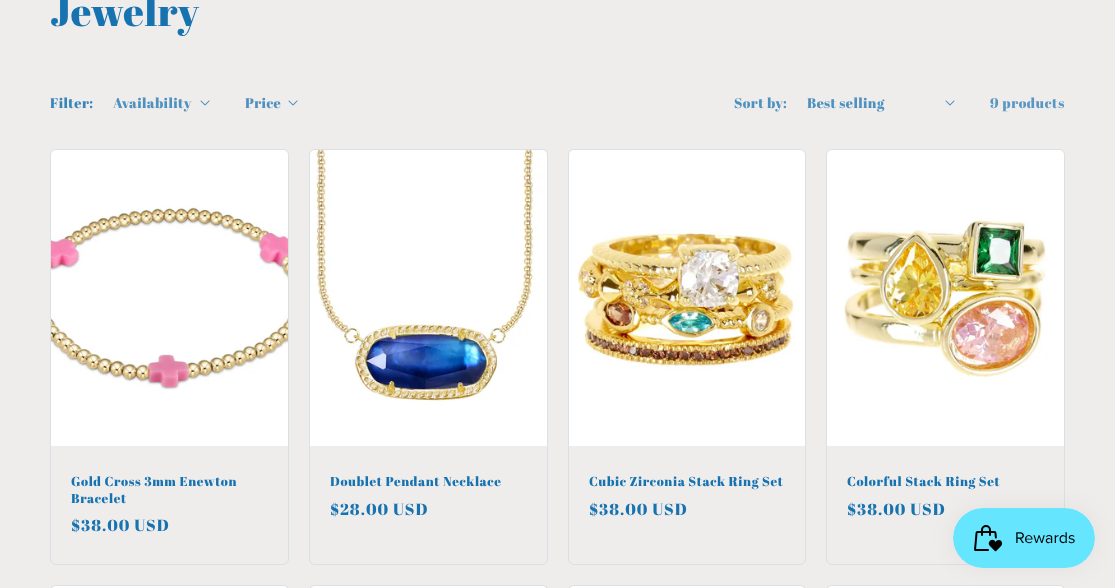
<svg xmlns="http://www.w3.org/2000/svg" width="1115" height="588">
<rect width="100%" height="100%" fill="#efecec"/>
<text x="50" y="26" style="font-family:Abril Fatface;font-size:40px;letter-spacing:0.6px;fill:#1773b0">Jewelry</text>
<text x="50" y="108" style="font-family:Abril Fatface;font-size:14px;letter-spacing:0.4px;fill:#3785b9">Filter:</text>
<text x="113" y="108" style="font-family:Abril Fatface;font-size:14px;letter-spacing:0.4px;fill:#4d91bf">Availability</text>
<image x="200" y="100" width="10" height="6" href="media/1.png"/>
<text x="245" y="108" style="font-family:Abril Fatface;font-size:14px;letter-spacing:0.4px;fill:#4d91bf">Price</text>
<image x="288" y="100" width="10" height="6" href="media/1.png"/>
<text x="734" y="108" style="font-family:Abril Fatface;font-size:14px;letter-spacing:0.4px;fill:#4d91bf">Sort by:</text>
<text x="807" y="108" style="font-family:Abril Fatface;font-size:14px;letter-spacing:0.4px;fill:#4d91bf">Best selling</text>
<image x="945" y="100" width="10" height="6" href="media/1.png"/>
<text x="990" y="108" style="font-family:Abril Fatface;font-size:14px;letter-spacing:0.6px;fill:#5897c2">9 products</text>
<rect x="50.5" y="149.5" width="238" height="415" rx="5.5" fill="none" stroke="#d9e0e6"/>
<image x="51" y="150" width="237" height="296" href="media/2.png"/>
<text x="71" y="486" style="font-family:Abril Fatface;font-size:13px;letter-spacing:0.6px;fill:#1773b0">Gold Cross 3mm Enewton</text>
<text x="71" y="503" style="font-family:Abril Fatface;font-size:13px;letter-spacing:0.6px;fill:#1773b0">Bracelet</text>
<text x="71" y="531" style="font-family:Abril Fatface;font-size:16px;letter-spacing:1px;fill:#1773b0">$38.00 USD</text>
<rect x="309.5" y="149.5" width="238" height="415" rx="5.5" fill="none" stroke="#d9e0e6"/>
<image x="310" y="150" width="237" height="296" href="media/3.png"/>
<text x="330" y="486" style="font-family:Abril Fatface;font-size:13px;letter-spacing:0.6px;fill:#1773b0">Doublet Pendant Necklace</text>
<text x="330" y="515" style="font-family:Abril Fatface;font-size:16px;letter-spacing:1px;fill:#1773b0">$28.00 USD</text>
<rect x="568.5" y="149.5" width="237" height="415" rx="5.5" fill="none" stroke="#d9e0e6"/>
<image x="569" y="150" width="236" height="296" href="media/4.png"/>
<text x="589" y="486" style="font-family:Abril Fatface;font-size:13px;letter-spacing:0.6px;fill:#1773b0">Cubic Zirconia Stack Ring Set</text>
<text x="589" y="515" style="font-family:Abril Fatface;font-size:16px;letter-spacing:1px;fill:#1773b0">$38.00 USD</text>
<rect x="826.5" y="149.5" width="238" height="415" rx="5.5" fill="none" stroke="#d9e0e6"/>
<image x="827" y="150" width="237" height="296" href="media/5.png"/>
<text x="847" y="486" style="font-family:Abril Fatface;font-size:13px;letter-spacing:0.6px;fill:#1773b0">Colorful Stack Ring Set</text>
<text x="847" y="515" style="font-family:Abril Fatface;font-size:16px;letter-spacing:1px;fill:#1773b0">$38.00 USD</text>
<rect x="50.5" y="585.5" width="238" height="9" rx="5.5" fill="none" stroke="#d9e0e6"/>
<image x="52" y="586" width="235" height="2" href="media/6.png"/>
<rect x="309.5" y="585.5" width="238" height="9" rx="5.5" fill="none" stroke="#d9e0e6"/>
<image x="311" y="586" width="235" height="2" href="media/6.png"/>
<rect x="568.5" y="585.5" width="237" height="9" rx="5.5" fill="none" stroke="#d9e0e6"/>
<image x="570" y="586" width="234" height="2" href="media/7.png"/>
<rect x="826.5" y="585.5" width="238" height="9" rx="5.5" fill="none" stroke="#d9e0e6"/>
<image x="828" y="586" width="235" height="2" href="media/6.png"/>
<rect x="953" y="508" width="142" height="60" rx="30" fill="#0000000d" filter="blur(12.5px)"/>
<image x="953" y="508" width="142" height="60" href="media/8.png"/>
</svg>
